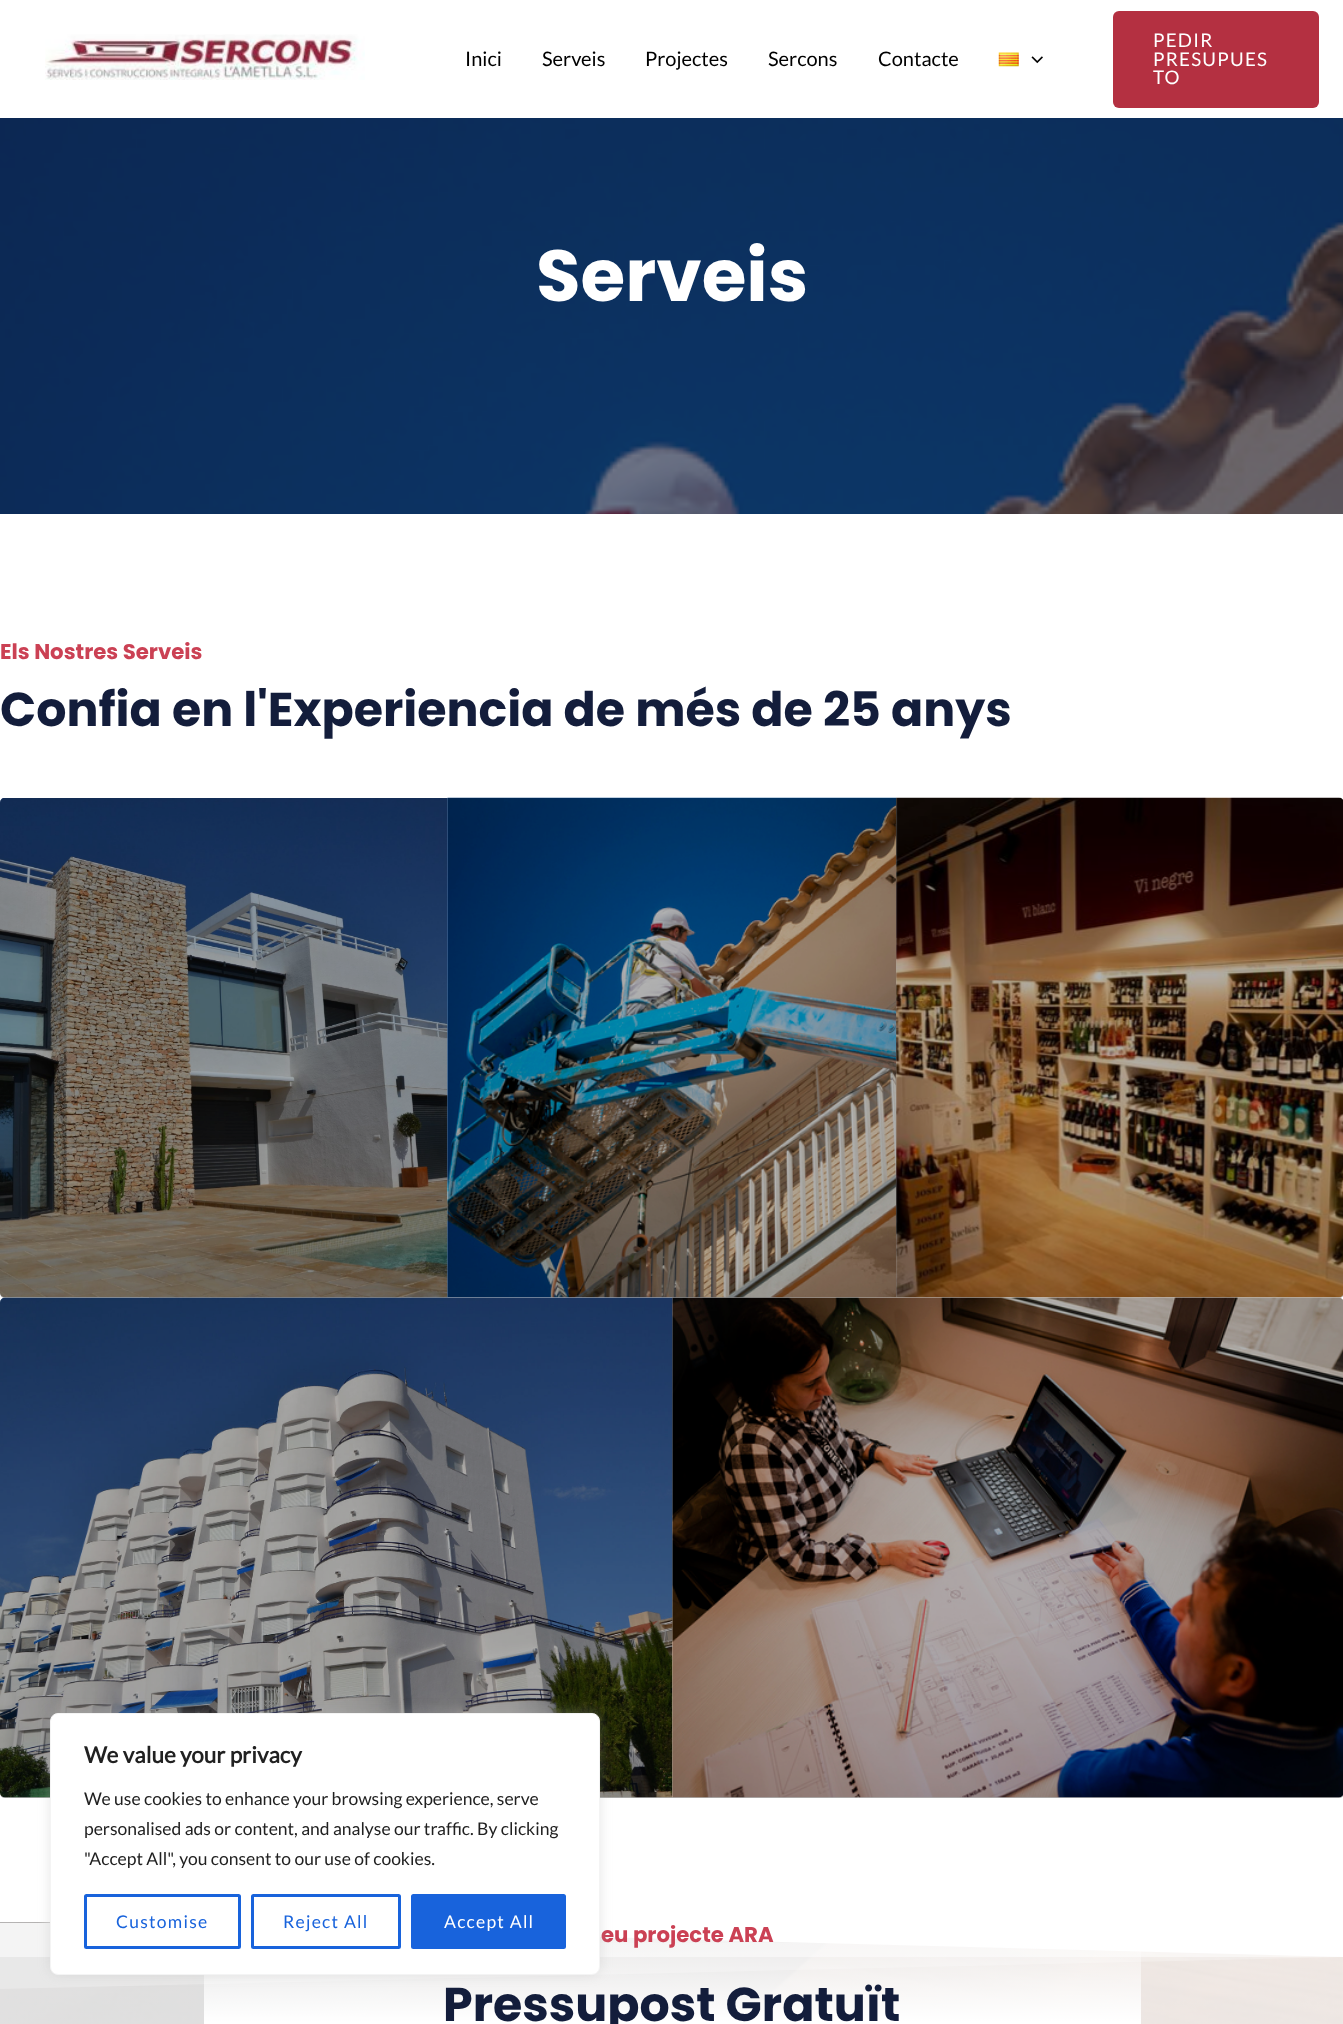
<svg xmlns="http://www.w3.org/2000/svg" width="1343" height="2024">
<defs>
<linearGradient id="g1" gradientUnits="userSpaceOnUse" x1="672" y1="1923" x2="672" y2="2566"><stop offset="0.2" stop-color="#fff" stop-opacity="0.85"/><stop offset="0.6" stop-color="#fff" stop-opacity="0"/></linearGradient>
<linearGradient id="g2" gradientUnits="userSpaceOnUse" x1="673" y1="1923" x2="673" y2="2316"><stop offset="0" stop-color="#fff" stop-opacity="0"/><stop offset="0.25" stop-color="#fff"/></linearGradient>
</defs>
<rect width="100%" height="100%" fill="#fff"/>
<image x="45" y="34" width="320" height="46" href="media/1.png"/>
<text x="465" y="66" style="font-family:Lato;font-size:20px;fill:#000">Inici</text>
<text x="542" y="66" style="font-family:Lato;font-size:20px;fill:#000">Serveis</text>
<text x="645" y="66" style="font-family:Lato;font-size:20px;fill:#000">Projectes</text>
<text x="768" y="66" style="font-family:Lato;font-size:20px;fill:#000">Sercons</text>
<text x="878" y="66" style="font-family:Lato;font-size:20px;fill:#000">Contacte</text>
<image x="998" y="52" width="21" height="15" href="media/2.png"/>
<image x="1031" y="56" width="12" height="8" href="media/3.png"/>
<rect x="1113" y="11" width="206" height="97" rx="6" fill="#b43041"/>
<text x="1153" y="47" style="font-family:Lato;font-size:18.75px;letter-spacing:1.25px;fill:#fff">PEDIR</text>
<text x="1153" y="66" style="font-family:Lato;font-size:18.75px;letter-spacing:1.25px;fill:#fff">PRESUPUES</text>
<text x="1153" y="84" style="font-family:Lato;font-size:18.75px;letter-spacing:1.25px;fill:#fff">TO</text>
<image x="0" y="118" width="1343" height="396" href="media/4.png"/>
<text x="536" y="301" style="font-family:Poppins;font-size:72.5px;font-weight:bold;fill:#fff">Serveis</text>
<text x="0" y="659" style="font-family:Poppins;font-size:21.25px;font-weight:bold;fill:#cb4154">Els Nostres Serveis</text>
<text x="0" y="726" style="font-family:Poppins;font-size:47.5px;font-weight:bold;fill:#131d3b">Confia en l'Experiencia de més de 25 anys</text>
<rect x="448" y="1297" width="448" height="1" fill="#b3b3b3"/>
<image x="0" y="798" width="448" height="500" href="media/5.png"/>
<path d="M5 798h443v500h-443c-3 0-5-2-5-5v-490c0-3 2-5 5-5z" fill="#0000004d"/>
<image x="447" y="797" width="450" height="501" href="media/6.png"/>
<image x="896" y="797" width="447" height="501" href="media/7.png"/>
<path d="M896 798h443c3 0 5 2 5 5v490c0 3-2 5-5 5h-443z" fill="#0000004d"/>
<image x="0" y="1297" width="673" height="501" href="media/8.png"/>
<path d="M5 1298h668v500h-668c-3 0-5-2-5-5v-490c0-3 2-5 5-5z" fill="#0000004d"/>
<image x="672" y="1297" width="671" height="501" href="media/9.png"/>
<path d="M673 1298h666c3 0 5 2 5 5v490c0 3-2 5-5 5h-666z" fill="#0000004d"/>
<image x="0" y="1922" width="1343" height="102" href="media/10.png"/>
<rect y="1923" width="1343" height="101" fill="url(#g1)"/>
<path d="M0 1921h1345v36z" fill="#fff"/>
<rect y="1922" width="1338" height="35" fill="#ffffff80"/>
<path d="M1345 1921h-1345v68l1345-32z" fill="#ffffff40"/>
<rect x="204" y="1943" width="937" height="81" fill="url(#g2)"/>
<text x="601" y="1942" style="font-family:Poppins;font-size:21.25px;font-weight:bold;fill:#cb4154">eu projecte ARA</text>
<text x="443" y="2021" style="font-family:Poppins;font-size:47.5px;font-weight:bold;fill:#131d3b">Pressupost Gratuït</text>
<rect x="50" y="1711" width="550" height="263" rx="8" fill="#acabab4d" filter="blur(6px)"/>
<rect x="50.5" y="1713.5" width="549" height="261" rx="7.5" fill="#fff" stroke="#f4f4f4"/>
<text x="84" y="1763" style="font-family:Lato;font-size:22.5px;font-weight:bold;fill:#212121">We value your privacy</text>
<text x="84" y="1805" style="font-family:Lato;font-size:17.5px;fill:#212121">We use cookies to enhance your browsing experience, serve</text>
<text x="84" y="1835" style="font-family:Lato;font-size:17.5px;fill:#212121">personalised ads or content, and analyse our traffic. By clicking</text>
<text x="84" y="1865" style="font-family:Lato;font-size:17.5px;fill:#212121">"Accept All", you consent to our use of cookies.</text>
<rect x="85.5" y="1895.5" width="154" height="52" rx="1" fill="none" stroke="#1863dc" stroke-width="3"/>
<text x="116" y="1928" style="font-family:Lato;font-size:17.5px;letter-spacing:1.25px;fill:#1863dc">Customise</text>
<rect x="252.5" y="1895.5" width="147" height="52" rx="1" fill="none" stroke="#1863dc" stroke-width="3"/>
<text x="283" y="1928" style="font-family:Lato;font-size:17.5px;letter-spacing:1.25px;fill:#1863dc">Reject All</text>
<rect x="412.5" y="1895.5" width="152" height="52" rx="1" fill="#1863dc" stroke="#1863dc" stroke-width="3"/>
<text x="444" y="1928" style="font-family:Lato;font-size:17.5px;letter-spacing:1.25px;fill:#fff">Accept All</text>
</svg>
